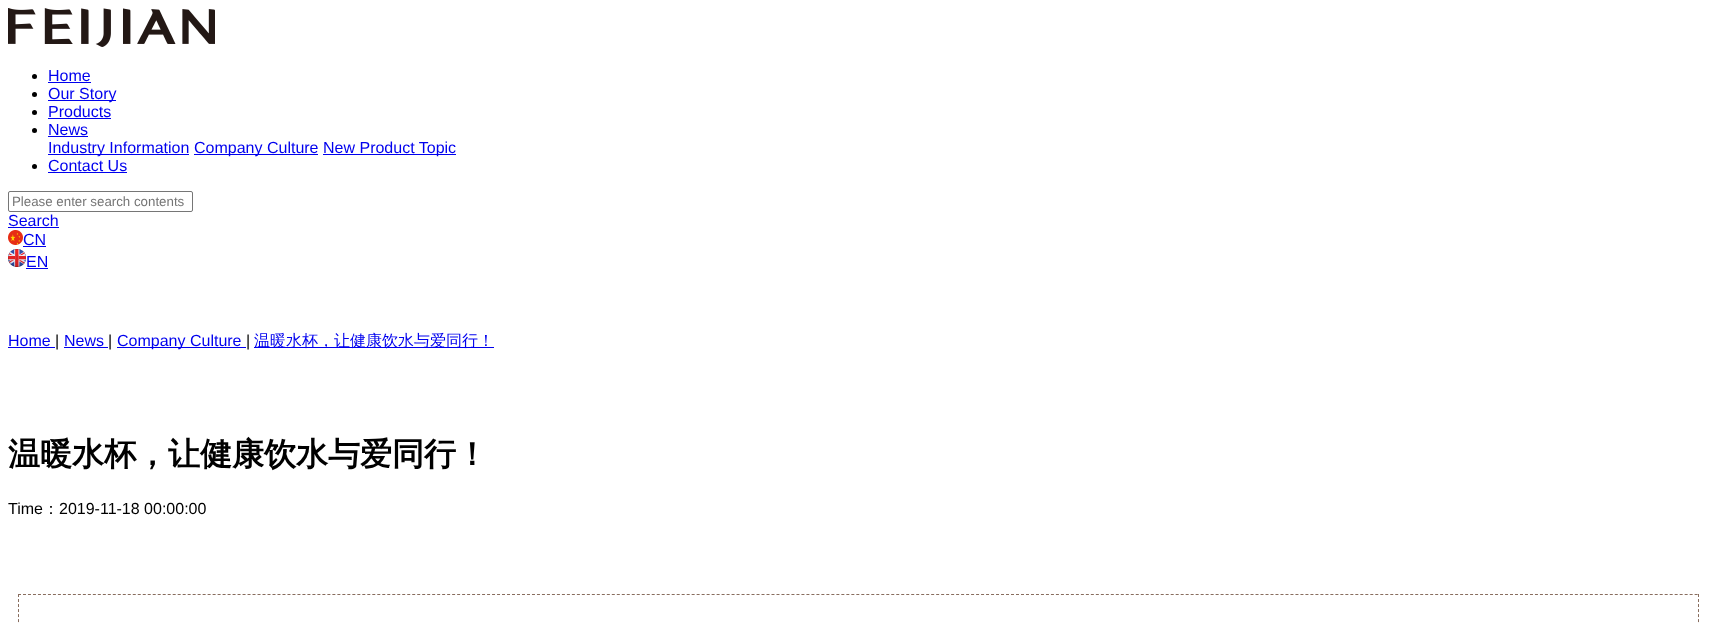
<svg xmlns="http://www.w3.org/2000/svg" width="1717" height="623">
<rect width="100%" height="100%" fill="#fff"/>
<image x="8" y="8" width="207" height="39" href="media/1.png"/>
<circle cx="34.5" cy="76.5" r="2.5" fill="#000"/>
<text x="48" y="81" style="font-family:Liberation Sans;font-size:16px;fill:#00e">Home</text>
<rect x="48" y="82" width="43" height="1" fill="#00e"/>
<circle cx="34.5" cy="94.5" r="2.5" fill="#000"/>
<rect x="48" y="100" width="68" height="1" fill="#00e"/>
<text x="48" y="99" style="font-family:Liberation Sans;font-size:16px;fill:#00e">Our Story</text>
<circle cx="34.5" cy="112.5" r="2.5" fill="#000"/>
<text x="48" y="117" style="font-family:Liberation Sans;font-size:16px;fill:#00e">Products</text>
<rect x="48" y="118" width="63" height="1" fill="#00e"/>
<circle cx="34.5" cy="130.5" r="2.5" fill="#000"/>
<text x="48" y="135" style="font-family:Liberation Sans;font-size:16px;fill:#00e">News</text>
<rect x="48" y="136" width="40" height="1" fill="#00e"/>
<rect x="48" y="154" width="141" height="1" fill="#00e"/>
<text x="48" y="153" style="font-family:Liberation Sans;font-size:16px;fill:#00e">Industry Information</text>
<rect x="194" y="154" width="124" height="1" fill="#00e"/>
<text x="194" y="153" style="font-family:Liberation Sans;font-size:16px;fill:#00e">Company Culture</text>
<rect x="323" y="154" width="133" height="1" fill="#00e"/>
<text x="323" y="153" style="font-family:Liberation Sans;font-size:16px;fill:#00e">New Product Topic</text>
<circle cx="34.5" cy="166.5" r="2.5" fill="#000"/>
<text x="48" y="171" style="font-family:Liberation Sans;font-size:16px;fill:#00e">Contact Us</text>
<rect x="48" y="172" width="79" height="1" fill="#00e"/>
<rect x="8.5" y="191.5" width="184" height="20" rx="1.5" fill="none" stroke="#767676"/>
<text x="12" y="206" style="font-family:Liberation Sans;font-size:13.3px;fill:#757575">Please enter search contents</text>
<text x="8" y="226" style="font-family:Liberation Sans;font-size:16px;fill:#00e">Search</text>
<rect x="8" y="227" width="51" height="1" fill="#00e"/>
<image x="8" y="230" width="15" height="15" href="media/2.png"/>
<text x="23" y="245" style="font-family:Liberation Sans;font-size:16px;fill:#00e">CN</text>
<rect x="23" y="246" width="23" height="1" fill="#00e"/>
<image x="8" y="249" width="18" height="18" href="media/3.png"/>
<text x="26" y="267" style="font-family:Liberation Sans;font-size:16px;fill:#00e">EN</text>
<rect x="26" y="268" width="22" height="1" fill="#00e"/>
<text x="8" y="346" style="font-family:Liberation Sans;font-size:16px;fill:#00e">Home</text>
<rect x="8" y="347" width="47" height="1" fill="#00e"/>
<text x="55" y="346" style="font-family:Liberation Sans;font-size:16px;fill:#000">|</text>
<text x="64" y="346" style="font-family:Liberation Sans;font-size:16px;fill:#00e">News</text>
<rect x="64" y="347" width="44" height="1" fill="#00e"/>
<text x="108" y="346" style="font-family:Liberation Sans;font-size:16px;fill:#000">|</text>
<rect x="117" y="347" width="129" height="1" fill="#00e"/>
<text x="117" y="346" style="font-family:Liberation Sans;font-size:16px;fill:#00e">Company Culture</text>
<text x="246" y="346" style="font-family:Liberation Sans;font-size:16px;fill:#000">|</text>
<rect x="254" y="347" width="240" height="1" fill="#00e"/>
<text x="254" y="346" style="font-family:WenQuanYi Zen Hei;font-size:16px;font-weight:500;fill:#00e">温暖水杯，让健康饮水与爱同行！</text>
<text x="8" y="465" style="font-family:WenQuanYi Zen Hei;font-size:32px;font-weight:bold;fill:#000">温暖水杯，让健康饮水与爱同行！</text>
<text x="8" y="514" style="font-family:Liberation Sans;font-size:16px;fill:#000">Time</text>
<text x="43" y="514" style="font-family:WenQuanYi Zen Hei;font-size:16px;font-weight:500;fill:#000">：</text>
<text x="59" y="514" style="font-family:Liberation Sans;font-size:16px;fill:#000">2019-11-18 00:00:00</text>
<path d="M18 594.5h1681" fill="none" stroke="#886d5e" stroke-dasharray="3 1.99"/>
<path d="M1698.5 594v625" fill="none" stroke="#886d5e" stroke-dasharray="3 2.02"/>
<path d="M18.5 594v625" fill="none" stroke="#886d5e" stroke-dasharray="3 2.02"/>
</svg>
